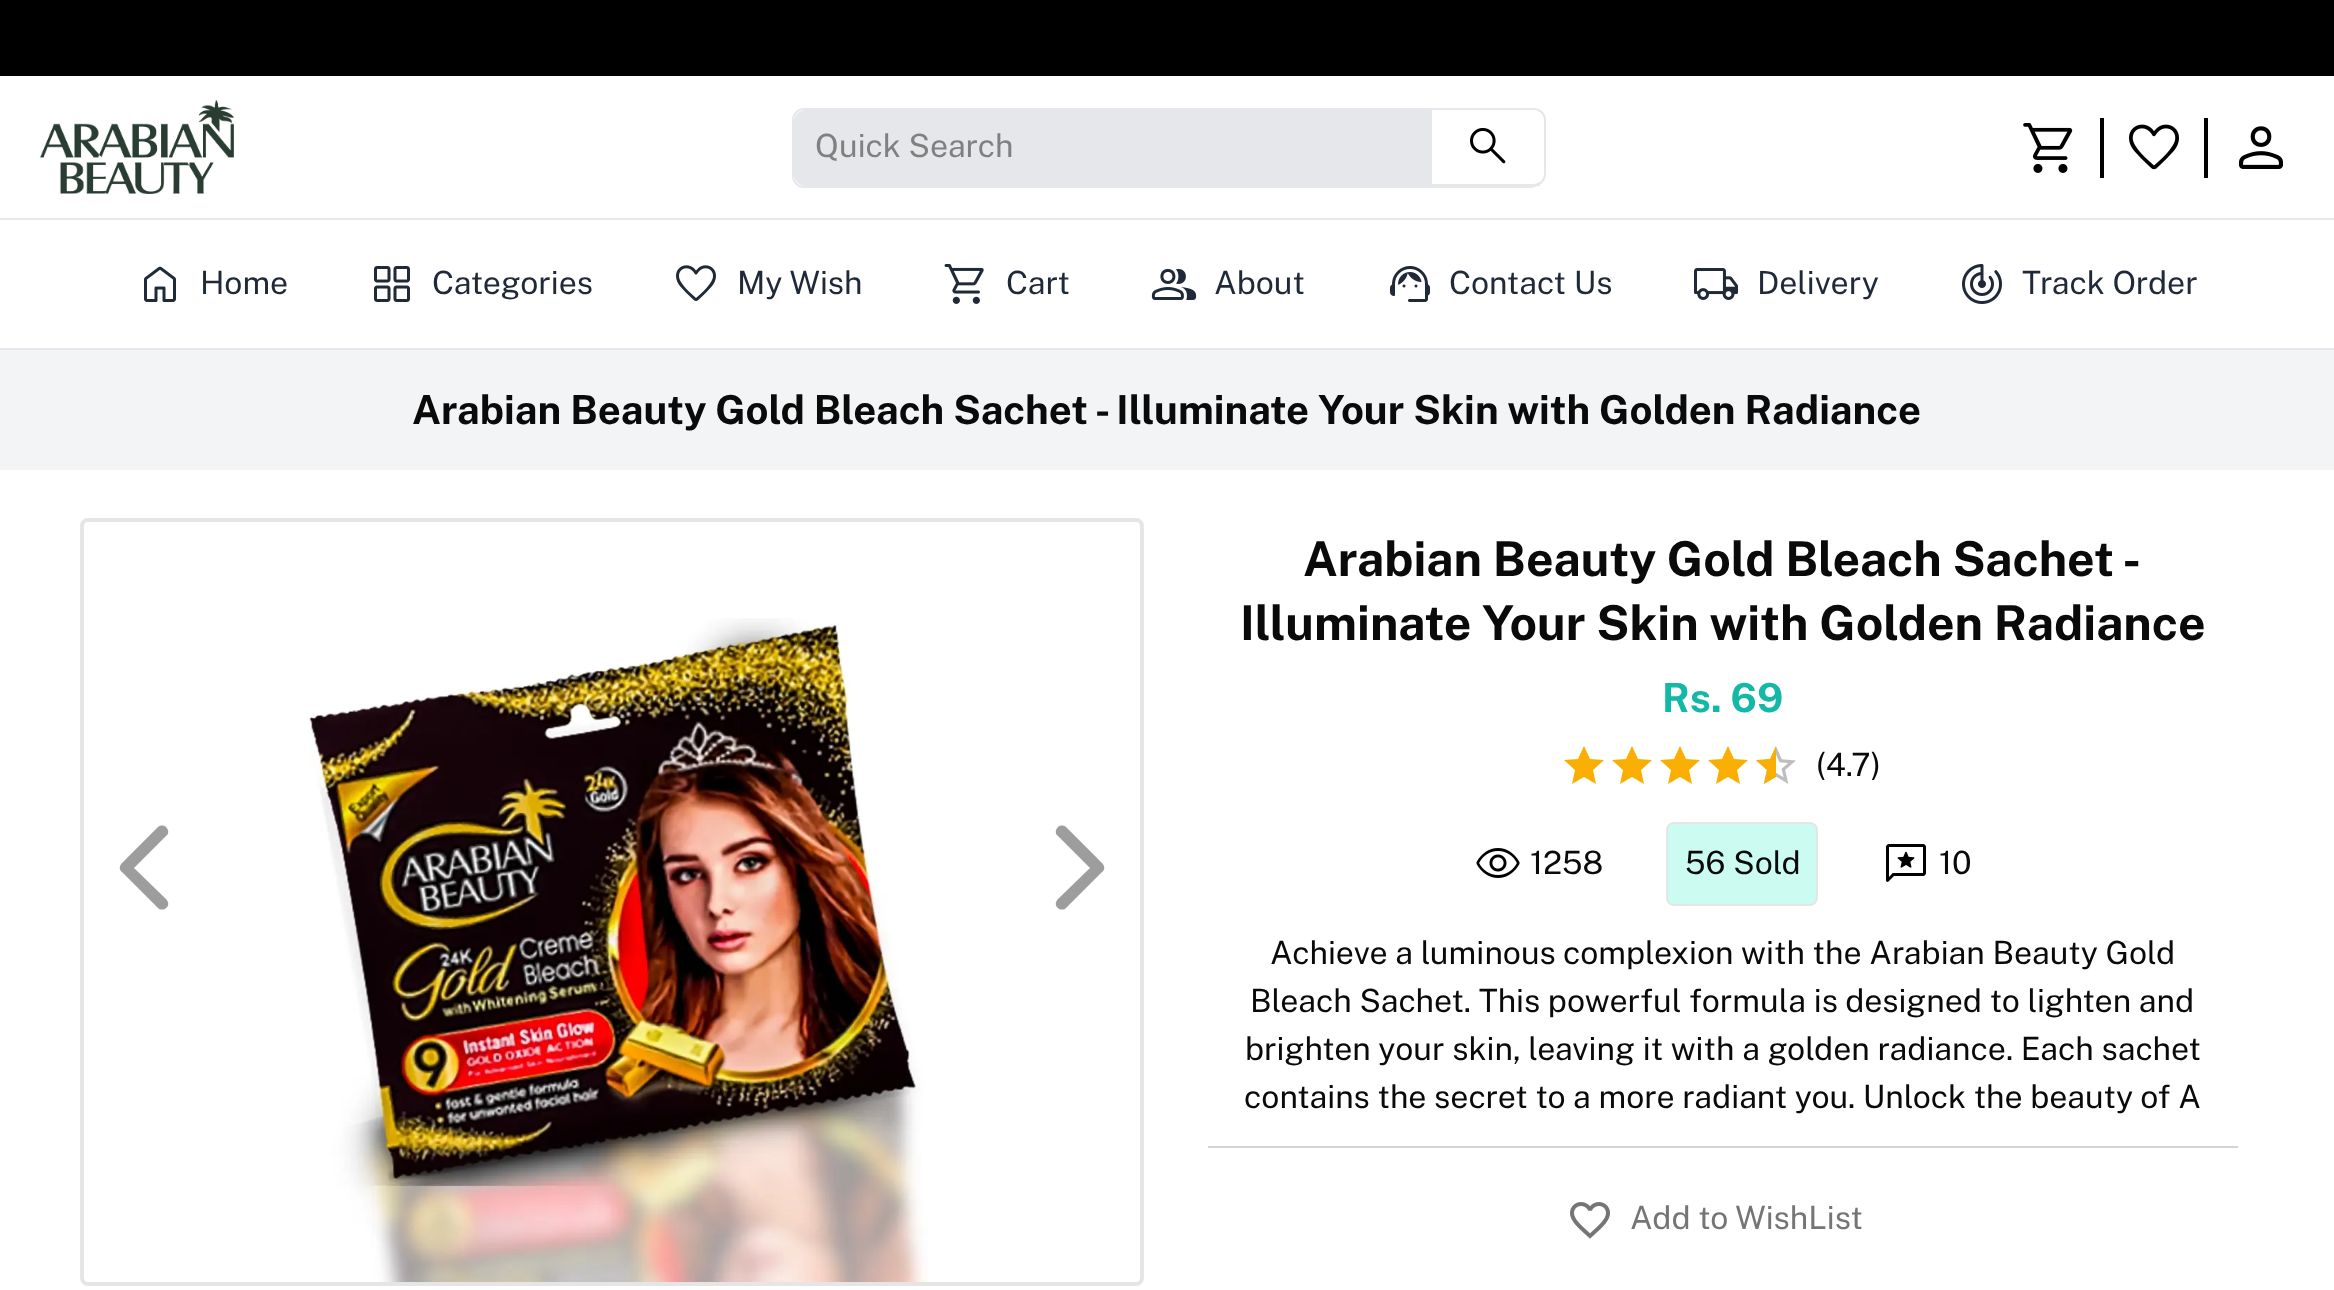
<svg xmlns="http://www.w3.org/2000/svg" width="2334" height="1290">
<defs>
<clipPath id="clip1"><rect x="1752" y="742" width="24" height="48"/></clipPath>
</defs>
<rect width="100%" height="100%" fill="#fff"/>
<rect width="2334" height="76" fill="#000"/>
<rect y="218" width="2334" height="2" fill="#e5e7eb"/>
<image x="40" y="100" width="194" height="94" href="media/1.png"/>
<rect x="793" y="109" width="748" height="78" rx="11" fill="none" stroke="#e5e7eb" stroke-width="2"/>
<path d="M806 111h733v74h-733c-6 0-11-5-11-11v-52c0-6 5-11 11-11z" fill="#e5e7eb" stroke="#e5e7eb" stroke-width="2"/>
<text x="815" y="157" style="font-family:Public Sans;font-size:32px;fill:#808080">Quick Search</text>
<path d="M1431 109h103c6 0 11 5 11 11v54c0 6-5 11-11 11h-103z" fill="#fff" stroke="#e5e7eb" stroke-width="2"/>
<image x="1470" y="127" width="36" height="37" href="media/2.png"/>
<rect x="2100" y="118" width="4" height="60" fill="#000"/>
<image x="2023" y="123" width="50" height="50" href="media/3.png"/>
<rect x="2204" y="118" width="4" height="60" fill="#000"/>
<image x="2129" y="124" width="50" height="46" href="media/4.png"/>
<image x="2239" y="126" width="44" height="43" href="media/5.png"/>
<rect y="348" width="2334" height="2" fill="#e5e7eb"/>
<image x="144" y="266" width="32" height="36" href="media/6.png"/>
<text x="200" y="294" style="font-family:Public Sans;font-size:32px;fill:#1f2937">Home</text>
<image x="374" y="266" width="36" height="36" href="media/7.png"/>
<text x="432" y="294" style="font-family:Public Sans;font-size:32px;fill:#1f2937">Categories</text>
<image x="676" y="265" width="40" height="36" href="media/8.png"/>
<text x="737" y="294" style="font-family:Public Sans;font-size:32px;fill:#1f2937">My Wish</text>
<image x="944" y="264" width="40" height="40" href="media/9.png"/>
<text x="1006" y="294" style="font-family:Public Sans;font-size:32px;fill:#1f2937">Cart</text>
<image x="1151" y="268" width="46" height="32" href="media/10.png"/>
<text x="1214" y="294" style="font-family:Public Sans;font-size:32px;fill:#1f2937">About</text>
<image x="1390" y="266" width="40" height="36" href="media/11.png"/>
<text x="1449" y="294" style="font-family:Public Sans;font-size:32px;fill:#1f2937">Contact Us</text>
<image x="1694" y="268" width="44" height="32" href="media/12.png"/>
<text x="1757" y="294" style="font-family:Public Sans;font-size:32px;fill:#1f2937">Delivery</text>
<image x="1962" y="264" width="40" height="40" href="media/13.png"/>
<text x="2022" y="294" style="font-family:Public Sans;font-size:32px;fill:#1f2937">Track Order</text>
<rect y="350" width="2334" height="120" fill="#f3f4f6"/>
<text x="412" y="424" style="font-family:Public Sans;font-size:40px;font-weight:bold;fill:#0a0a0a">Arabian Beauty Gold Bleach Sachet - Illuminate Your Skin with Golden Radiance</text>
<rect x="82" y="520" width="1060" height="764" rx="6" fill="none" stroke="#e5e5e5" stroke-width="4"/>
<path d="M122 863c-3 3-3 7 0 9l36 36c2 2 6 2 8 0c3-2 3-6 0-9l-32-31l32-32c3-2 3-6 0-9c-2-2-6-2-8 0z" fill="#9d9d9d"/>
<image x="309" y="618" width="619" height="664" href="media/14.png"/>
<path d="M1102 863c3 3 3 7 0 9l-36 36c-2 2-6 2-8 0c-3-2-3-6 0-9l32-31l-32-32c-3-2-3-6 0-9c2-2 6-2 8 0z" fill="#9d9d9d"/>
<text x="1303" y="576" style="font-family:Public Sans;font-size:48px;font-weight:bold;fill:#0a0a0a">Arabian Beauty Gold Bleach Sachet -</text>
<text x="1240" y="640" style="font-family:Public Sans;font-size:48px;font-weight:bold;fill:#0a0a0a">Illuminate Your Skin with Golden Radiance</text>
<text x="1662" y="712" style="font-family:Public Sans;font-size:40px;font-weight:bold;fill:#14b8a6">Rs. 69</text>
<path d="M1584 777l12 7l-3-14l11-10l-14-1l-6-13l-6 13l-14 1l11 10l-3 14z" fill="#faaf00"/>
<path d="M1632 777l12 7l-3-14l11-10l-14-1l-6-13l-6 13l-14 1l11 10l-3 14z" fill="#faaf00"/>
<path d="M1680 777l12 7l-3-14l11-10l-14-1l-6-13l-6 13l-14 1l11 10l-3 14z" fill="#faaf00"/>
<path d="M1728 777l12 7l-3-14l11-10l-14-1l-6-13l-6 13l-14 1l11 10l-3 14z" fill="#faaf00"/>
<image x="1756" y="746" width="40" height="38" href="media/15.png"/>
<g clip-path="url(#clip1)">
<path d="M1776 777l12 7l-3-14l11-10l-14-1l-6-13l-6 13l-14 1l11 10l-3 14z" fill="#faaf00"/>
</g>
<text x="1816" y="776" style="font-family:Public Sans;font-size:32px;fill:#0a0a0a">(4.7</text>
<text x="1871" y="776" style="font-family:Public Sans;font-size:32px;fill:#0a0a0a">)</text>
<image x="1476" y="848" width="44" height="30" href="media/16.png"/>
<text x="1530" y="874" style="font-family:Public Sans;font-size:32px;fill:#0a0a0a">1258</text>
<rect x="1667" y="823" width="150" height="82" rx="7" fill="#ccfbf1" stroke="#e5e5e5" stroke-width="2"/>
<text x="1685" y="874" style="font-family:Public Sans;font-size:32px;fill:#0a0a0a">56 Sold</text>
<image x="1886" y="844" width="40" height="38" href="media/17.png"/>
<text x="1939" y="874" style="font-family:Public Sans;font-size:32px;fill:#0a0a0a">10</text>
<text x="1270" y="964" style="font-family:Public Sans;font-size:32px;fill:#0a0a0a">Achieve a luminous complexion with the Arabian Beauty Gold</text>
<text x="1250" y="1012" style="font-family:Public Sans;font-size:32px;fill:#0a0a0a">Bleach Sachet. This powerful formula is designed to lighten and</text>
<text x="1245" y="1060" style="font-family:Public Sans;font-size:32px;fill:#0a0a0a">brighten your skin, leaving it with a golden radiance. Each sachet</text>
<text x="1244" y="1108" style="font-family:Public Sans;font-size:32px;fill:#0a0a0a">contains the secret to a more radiant you. Unlock the beauty of A</text>
<rect x="1208" y="1146" width="1030" height="2" fill="#d1d5db"/>
<image x="1570" y="1202" width="40" height="37" href="media/18.png"/>
<text x="1630" y="1229" style="font-family:Public Sans;font-size:32px;fill:#757575">Add to WishList</text>
</svg>
